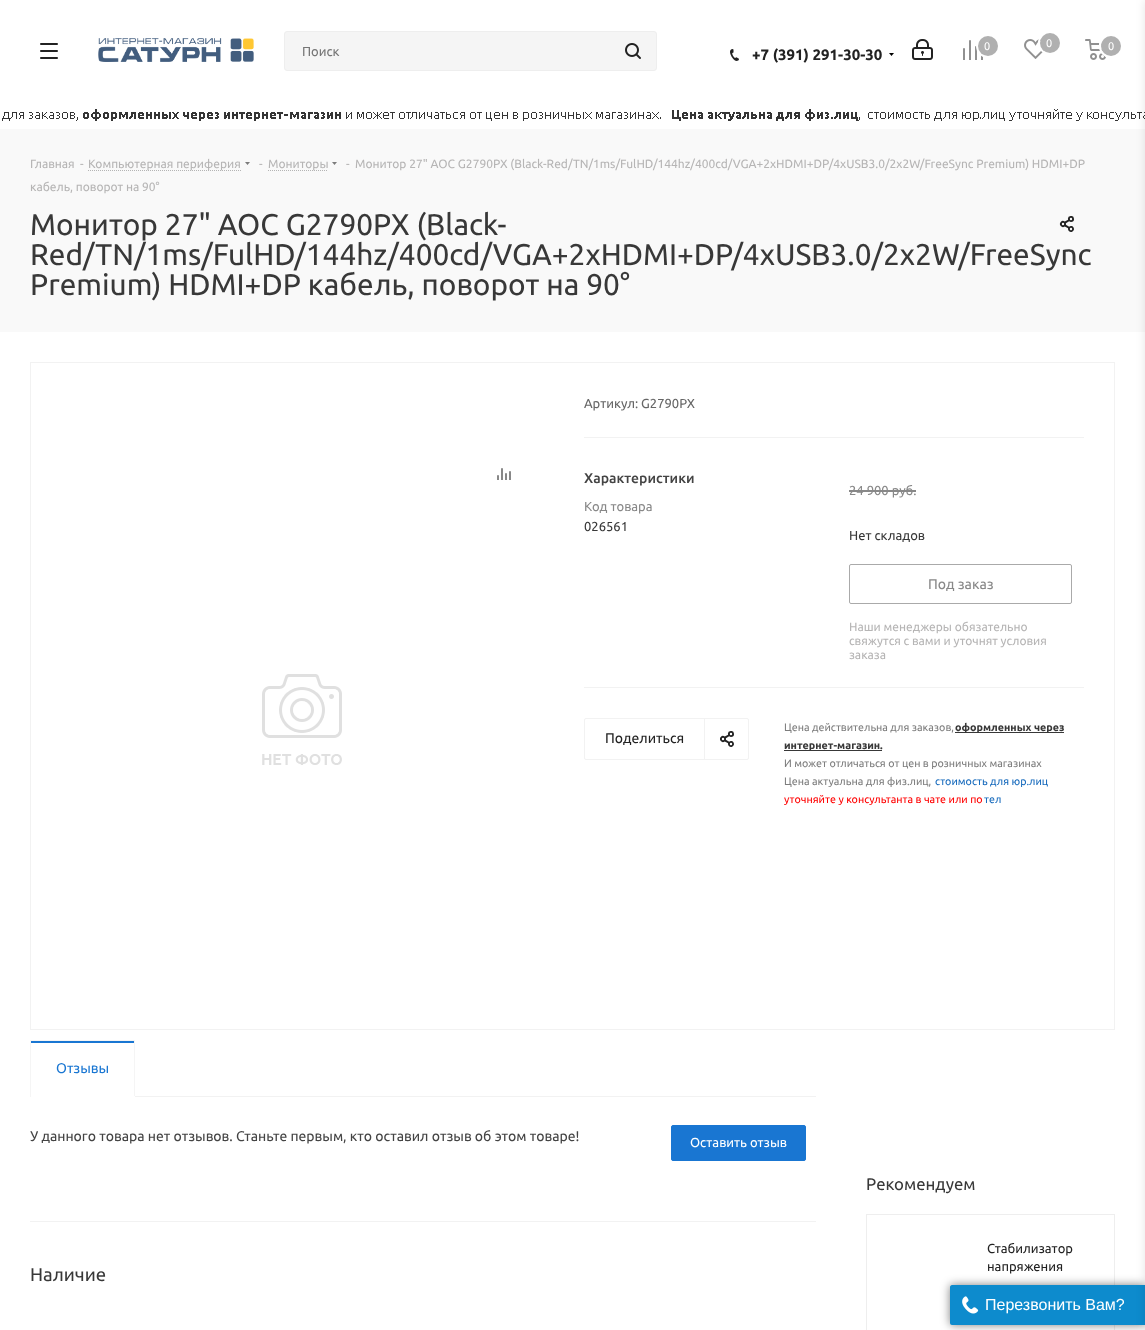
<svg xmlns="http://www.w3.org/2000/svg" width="1145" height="1330">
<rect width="100%" height="100%" fill="#fff"/>
<image x="40" y="43" width="18" height="16" href="media/1.png"/>
<image x="98" y="38" width="156" height="24" href="media/2.png"/>
<rect x="284.5" y="31.5" width="372" height="39" rx="2.5" fill="#f5f5f5" stroke="#eee"/>
<text x="302" y="56" style="font-family:Ubuntu;font-size:13px;fill:#757575">Поиск</text>
<image x="625" y="43" width="16" height="16" href="media/3.png"/>
<image x="912" y="39" width="21" height="21" href="media/4.png"/>
<image x="963" y="40" width="20" height="20" href="media/5.png"/>
<circle cx="988" cy="46" r="11" fill="none" stroke="#fff" stroke-width="2"/>
<circle cx="988" cy="46" r="10" fill="#b0b0b0"/>
<text x="984" y="50" style="font-family:Ubuntu;font-size:11px;fill:#fff">0</text>
<image x="1024" y="39" width="20" height="20" href="media/6.png"/>
<circle cx="1050" cy="43" r="11" fill="none" stroke="#fff" stroke-width="2"/>
<circle cx="1050" cy="43" r="10" fill="#b0b0b0"/>
<text x="1046" y="47" style="font-family:Ubuntu;font-size:11px;fill:#fff">0</text>
<image x="1085" y="39" width="21" height="21" href="media/7.png"/>
<circle cx="1111" cy="46" r="11" fill="none" stroke="#fff" stroke-width="2"/>
<circle cx="1111" cy="46" r="11" fill="none" stroke="#fff" stroke-width="2"/>
<circle cx="1111" cy="46" r="10" fill="#b0b0b0"/>
<text x="1108" y="50" style="font-family:Ubuntu;font-size:11px;fill:#fff">0</text>
<image x="730" y="49" width="9" height="12" href="media/8.png"/>
<text x="752" y="60" style="font-family:Ubuntu;font-size:15px;font-weight:bold;fill:#222">+7 (391) 291-30-30</text>
<image x="889" y="53" width="5" height="3" href="media/9.png"/>
<image x="2" y="109" width="1143" height="12" href="media/10.png"/>
<rect y="129" width="1145" height="203" fill="#f9f9f9"/>
<text x="30" y="168" style="font-family:Ubuntu;font-size:12px;fill:#b6b5b5">Главная</text>
<text x="80" y="168" style="font-family:Ubuntu;font-size:12px;fill:#b6b5b5">-</text>
<path d="M88 170.5h153" fill="none" stroke="#b4b4b4" stroke-dasharray="1 1"/>
<text x="88" y="168" style="font-family:Ubuntu;font-size:12px;fill:#b6b5b5">Компьютерная периферия</text>
<image x="245" y="162" width="5" height="3" href="media/11.png"/>
<text x="259" y="168" style="font-family:Ubuntu;font-size:12px;fill:#b6b5b5">-</text>
<path d="M268 170.5h60" fill="none" stroke="#b4b4b4" stroke-dasharray="1 1"/>
<text x="268" y="168" style="font-family:Ubuntu;font-size:12px;fill:#b6b5b5">Мониторы</text>
<image x="332" y="162" width="5" height="3" href="media/11.png"/>
<text x="346" y="168" style="font-family:Ubuntu;font-size:12px;fill:#b6b5b5">-</text>
<text x="355" y="168" style="font-family:Ubuntu;font-size:12px;fill:#b6b5b5">Монитор 27" AOC G2790PX (Black-Red/TN/1ms/FulHD/144hz/400cd/VGA+2xHDMI+DP/4xUSB3.0/2x2W/FreeSync Premium) HDMI+DP</text>
<text x="30" y="191" style="font-family:Ubuntu;font-size:12px;fill:#b6b5b5">кабель, поворот на 90°</text>
<text x="30" y="235" style="font-family:Ubuntu;font-size:29.85px;fill:#383838">Монитор 27" AOC G2790PX (Black-</text>
<text x="30" y="265" style="font-family:Ubuntu;font-size:29.85px;fill:#383838">Red/TN/1ms/FulHD/144hz/400cd/VGA+2xHDMI+DP/4xUSB3.0/2x2W/FreeSync</text>
<text x="30" y="295" style="font-family:Ubuntu;font-size:29.85px;fill:#383838">Premium) HDMI+DP кабель, поворот на 90°</text>
<image x="1059" y="216" width="15" height="16" href="media/12.png"/>
<rect x="30.5" y="362.5" width="1084" height="667" fill="none" stroke="#f2f2f2"/>
<image x="497" y="468" width="14" height="12" href="media/13.png"/>
<image x="262" y="674" width="80" height="91" href="media/14.png"/>
<rect x="584" y="437" width="500" height="1" fill="#f2f2f2"/>
<text x="584" y="408" style="font-family:Ubuntu;font-size:13px;fill:#666">Артикул: G2790PX</text>
<text x="584" y="483" style="font-family:Ubuntu;font-size:14px;font-weight:500;fill:#444">Характеристики</text>
<text x="584" y="511" style="font-family:Ubuntu;font-size:13px;fill:#888">Код товара</text>
<text x="584" y="531" style="font-family:Ubuntu;font-size:13px;fill:#383838">026561</text>
<text x="849" y="495" style="font-family:Ubuntu;font-size:13px;fill:#888">24 900 руб.</text>
<rect x="849" y="490" width="67" height="2" fill="#888"/>
<text x="849" y="540" style="font-family:Ubuntu;font-size:13px;fill:#383838">Нет складов</text>
<rect x="849.5" y="564.5" width="222" height="39" rx="1.5" fill="none" stroke="#aaa"/>
<text x="928" y="589" style="font-family:Ubuntu;font-size:14px;fill:#888">Под заказ</text>
<text x="849" y="631" style="font-family:Ubuntu;font-size:12px;fill:#b6b5b5">Наши менеджеры обязательно</text>
<text x="849" y="645" style="font-family:Ubuntu;font-size:12px;fill:#b6b5b5">свяжутся с вами и уточнят условия</text>
<text x="849" y="659" style="font-family:Ubuntu;font-size:12px;fill:#b6b5b5">заказа</text>
<rect x="584" y="687" width="500" height="1" fill="#f2f2f2"/>
<rect x="704" y="718" width="1" height="42" fill="#f2f2f2"/>
<image x="720" y="731" width="14" height="16" href="media/15.png"/>
<rect x="584.5" y="718.5" width="164" height="41" rx="1.5" fill="none" stroke="#f2f2f2"/>
<text x="605" y="743" style="font-family:Ubuntu;font-size:14px;fill:#222">Поделиться</text>
<text x="784" y="731" style="font-family:Ubuntu;font-size:10.7px;fill:#7d7d7d">Цена действительна для заказов,</text>
<rect x="955" y="732" width="109" height="1" fill="#383838"/>
<text x="955" y="731" style="font-family:Ubuntu;font-size:10.7px;font-weight:bold;fill:#383838">оформленных через</text>
<rect x="784" y="750" width="98" height="1" fill="#383838"/>
<text x="784" y="749" style="font-family:Ubuntu;font-size:10.7px;font-weight:bold;fill:#383838">интернет-магазин.</text>
<text x="784" y="767" style="font-family:Ubuntu;font-size:10.7px;fill:#7d7d7d">И может отличаться от цен в розничных магазинах</text>
<text x="784" y="785" style="font-family:Ubuntu;font-size:10.7px;fill:#7d7d7d">Цена актуальна для физ.лиц,</text>
<text x="935" y="785" style="font-family:Ubuntu;font-size:10.7px;fill:#1569bc">стоимость для юр.лиц</text>
<text x="784" y="803" style="font-family:Ubuntu;font-size:10.7px;fill:#f00">уточняйте у консультанта в чате или по</text>
<text x="984" y="803" style="font-family:Ubuntu;font-size:10.7px;fill:#1569bc">тел</text>
<rect x="135" y="1096" width="681" height="1" fill="#f2f2f2"/>
<rect x="30" y="1040" width="105" height="1" fill="#f5f5f5"/>
<rect x="134" y="1040" width="1" height="57" fill="#f5f5f5"/>
<rect x="134" y="1096" width="1" height="1" fill="#fff"/>
<rect x="30" y="1040" width="1" height="57" fill="#f5f5f5"/>
<rect x="31" y="1041" width="103" height="2" fill="#1976d2"/>
<text x="56" y="1073" style="font-family:Ubuntu;font-size:14px;fill:#1976d2">Отзывы</text>
<text x="30" y="1141" style="font-family:Ubuntu;font-size:14px;fill:#444">У данного товара нет отзывов. Станьте первым, кто оставил отзыв об этом товаре!</text>
<rect x="671.5" y="1125.5" width="134" height="35" rx="1.5" fill="#1976d2" stroke="#1976d2"/>
<text x="690" y="1147" style="font-family:Ubuntu;font-size:13px;fill:#fff">Оставить отзыв</text>
<rect x="30" y="1221" width="786" height="1" fill="#f2f2f2"/>
<text x="30" y="1281" style="font-family:Ubuntu;font-size:18.5px;fill:#383838">Наличие</text>
<text x="866" y="1190" style="font-family:Ubuntu;font-size:16.75px;fill:#383838">Рекомендуем</text>
<rect x="866.5" y="1214.5" width="248" height="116" fill="none" stroke="#eee"/>
<text x="987" y="1253" style="font-family:Ubuntu;font-size:13px;fill:#222">Стабилизатор</text>
<text x="987" y="1271" style="font-family:Ubuntu;font-size:13px;fill:#222">напряжения</text>
<rect x="950" y="1285" width="195" height="40" rx="2" fill="#00000080" filter="blur(5px)"/>
<path d="M952 1285h193v40h-193c-1 0-2-1-2-2v-36c0-1 1-2 2-2z" fill="#0d8bcd"/>
<image x="962" y="1296" width="17" height="18" href="media/16.png"/>
<text x="985" y="1310" style="font-family:Liberation Sans;font-size:16px;fill:#fff">Перезвонить Вам?</text>
<rect x="1145" width="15" height="1330" fill="#0000001a" filter="blur(5px)"/>
</svg>
